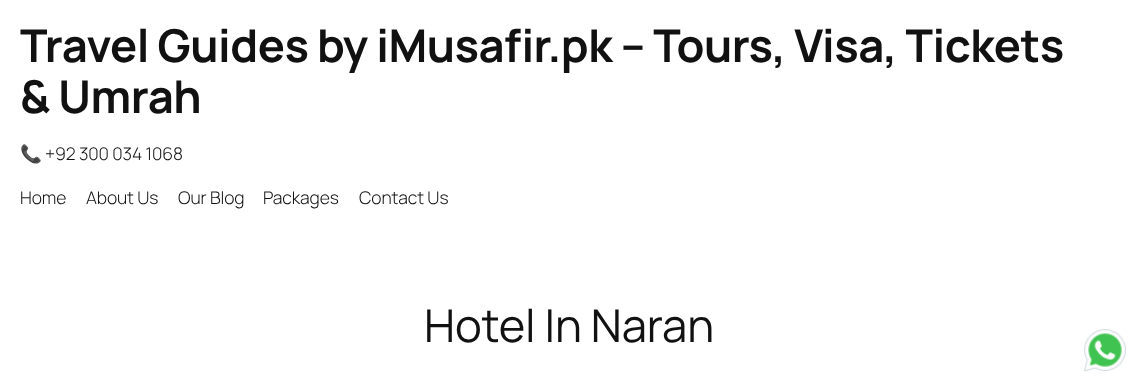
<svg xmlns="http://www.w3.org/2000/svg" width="1138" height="390">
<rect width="100%" height="100%" fill="#fff"/>
<text x="20" y="62" style="font-family:Manrope;font-size:45.3px;font-weight:bold;letter-spacing:-0.5px;fill:#111">Travel Guides by iMusafir.pk – Tours, Visa, Tickets</text>
<text x="20" y="113" style="font-family:Manrope;font-size:45.3px;font-weight:bold;letter-spacing:-0.5px;fill:#111">&amp; Umrah</text>
<text x="20" y="160" style="font-family:Noto Color Emoji;font-size:17.5px;letter-spacing:-0.1px;fill:#111">📞</text>
<text x="45" y="160" style="font-family:Manrope;font-size:17.5px;font-weight:300;letter-spacing:-0.1px;fill:#111">+92 300 034 1068</text>
<text x="20" y="204" style="font-family:Manrope;font-size:17.5px;font-weight:300;letter-spacing:-0.1px;fill:#111">Home</text>
<text x="86" y="204" style="font-family:Manrope;font-size:17.5px;font-weight:300;letter-spacing:-0.1px;fill:#111">About Us</text>
<text x="178" y="204" style="font-family:Manrope;font-size:17.5px;font-weight:300;letter-spacing:-0.1px;fill:#111">Our Blog</text>
<text x="263" y="204" style="font-family:Manrope;font-size:17.5px;font-weight:300;letter-spacing:-0.1px;fill:#111">Packages</text>
<text x="359" y="204" style="font-family:Manrope;font-size:17.5px;font-weight:300;letter-spacing:-0.1px;fill:#111">Contact Us</text>
<text x="424" y="342" style="font-family:Manrope;font-size:45.3px;letter-spacing:-0.1px;fill:#111">Hotel In Naran</text>
<image x="1084" y="329" width="42" height="43" href="media/1.png"/>
</svg>
